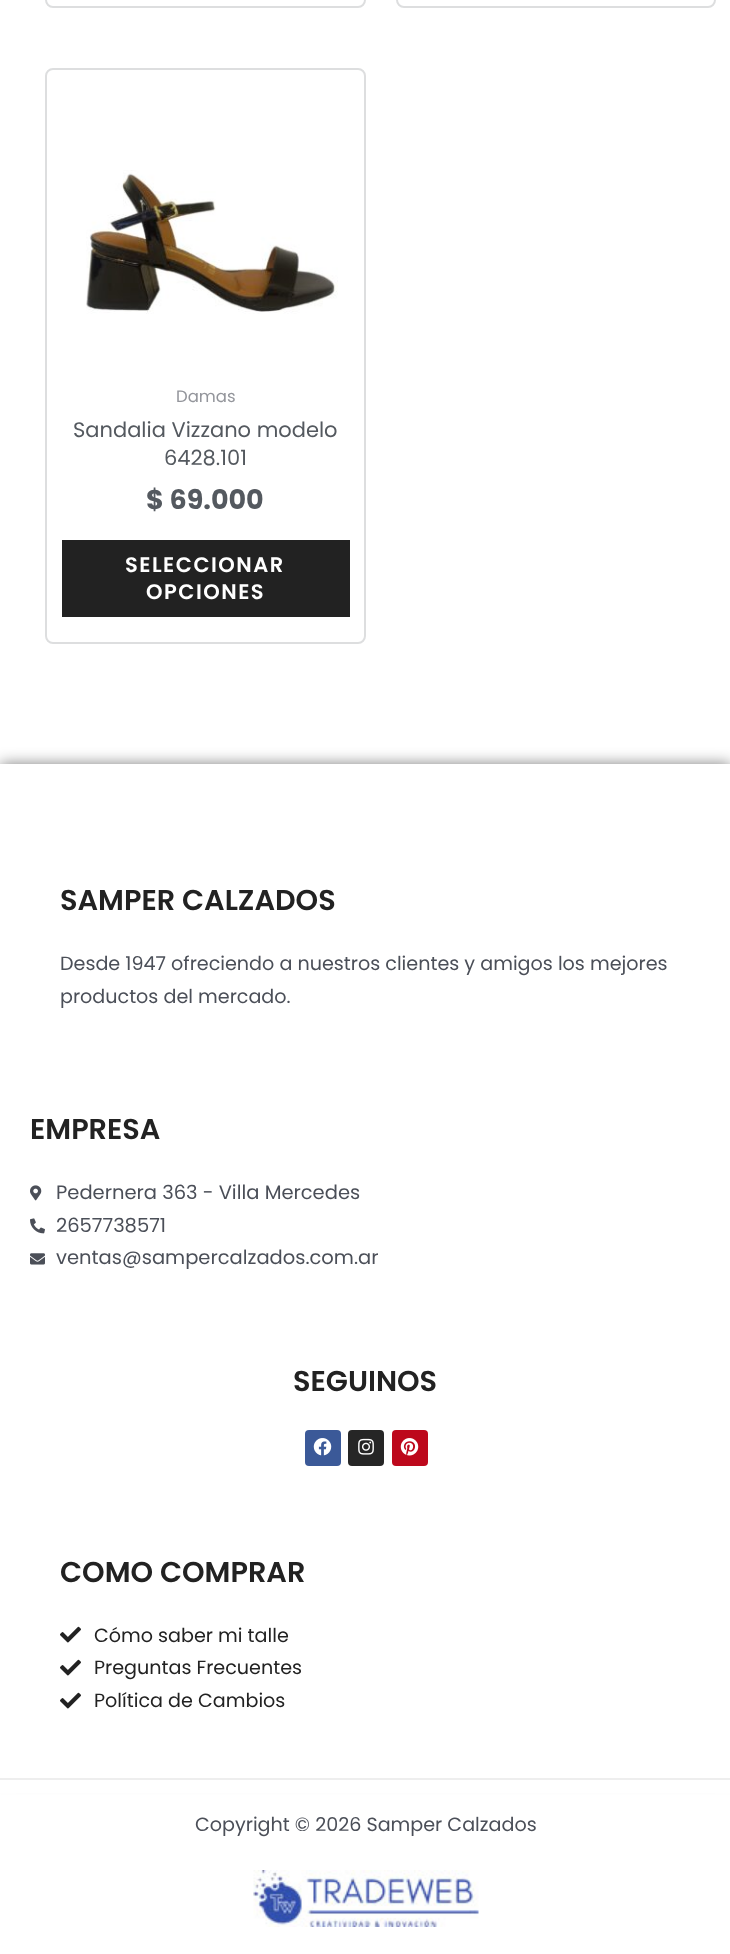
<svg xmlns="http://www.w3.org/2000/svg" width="730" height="1954">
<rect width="100%" height="100%" fill="#fff"/>
<rect x="46" y="-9" width="319" height="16" rx="7" fill="none" stroke="#dddedf" stroke-width="2"/>
<rect x="397" y="-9" width="318" height="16" rx="7" fill="none" stroke="#dddedf" stroke-width="2"/>
<rect x="46" y="69" width="319" height="574" rx="7" fill="none" stroke="#dddedf" stroke-width="2"/>
<image x="86" y="170" width="252" height="144" href="media/1.png"/>
<text x="176" y="402" style="font-family:Poppins;font-size:16.5px;fill:#93959b">Damas</text>
<text x="73" y="437" style="font-family:Poppins;font-size:21px;fill:#54595f">Sandalia Vizzano modelo</text>
<text x="164" y="465" style="font-family:Poppins;font-size:21px;fill:#54595f">6428.101</text>
<text x="146" y="509" style="font-family:Poppins;font-size:27px;font-weight:bold;fill:#54595f">$ 69.000</text>
<rect x="62" y="540" width="288" height="77" fill="#222"/>
<text x="125" y="572" style="font-family:Poppins;font-size:21px;font-weight:600;letter-spacing:1.5px;fill:#fff">SELECCIONAR</text>
<text x="146" y="599" style="font-family:Poppins;font-size:21px;font-weight:600;letter-spacing:1.5px;fill:#fff">OPCIONES</text>
<rect y="764" width="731" height="1014" fill="#00000080" filter="blur(7.5px)"/>
<rect y="764" width="730" height="1014" fill="#fff"/>
<text x="60" y="910" style="font-family:Poppins;font-size:28.75px;font-weight:600;fill:#222">SAMPER CALZADOS</text>
<text x="60" y="970" style="font-family:Poppins;font-size:19.15px;fill:#4b4f58">Desde 1947 ofreciendo a nuestros clientes y amigos los mejores</text>
<text x="60" y="1003" style="font-family:Poppins;font-size:19.15px;fill:#4b4f58">productos del mercado.</text>
<text x="30" y="1139" style="font-family:Poppins;font-size:28.75px;font-weight:600;fill:#222">EMPRESA</text>
<image x="30" y="1185" width="12" height="16" href="media/2.png"/>
<text x="56" y="1199" style="font-family:Poppins;font-size:19.5px;fill:#4b4f58">Pedernera 363 - Villa Mercedes</text>
<image x="30" y="1218" width="15" height="16" href="media/3.png"/>
<text x="56" y="1232" style="font-family:Poppins;font-size:19.5px;fill:#4b4f58">2657738571</text>
<image x="30" y="1253" width="15" height="12" href="media/4.png"/>
<text x="56" y="1264" style="font-family:Poppins;font-size:19.5px;fill:#4b4f58">ventas@sampercalzados.com.ar</text>
<text x="293" y="1391" style="font-family:Poppins;font-size:28.75px;font-weight:600;fill:#222">SEGUINOS</text>
<rect x="305" y="1430" width="36" height="36" rx="4" fill="#3b5998"/>
<image x="313" y="1438" width="19" height="18" href="media/5.png"/>
<rect x="348" y="1430" width="36" height="36" rx="4" fill="#262626"/>
<image x="358" y="1438" width="16" height="17" href="media/6.png"/>
<rect x="392" y="1430" width="36" height="36" rx="4" fill="#bd081c"/>
<image x="400" y="1438" width="19" height="18" href="media/7.png"/>
<text x="60" y="1582" style="font-family:Poppins;font-size:28.75px;font-weight:600;fill:#222">COMO COMPRAR</text>
<image x="60" y="1626" width="21" height="17" href="media/8.png"/>
<text x="94" y="1642" style="font-family:Poppins;font-size:19.15px;fill:#222">Cómo saber mi talle</text>
<image x="60" y="1659" width="21" height="17" href="media/8.png"/>
<text x="94" y="1674" style="font-family:Poppins;font-size:19.15px;fill:#222">Preguntas Frecuentes</text>
<image x="60" y="1692" width="21" height="17" href="media/8.png"/>
<text x="94" y="1707" style="font-family:Poppins;font-size:19.15px;fill:#222">Política de Cambios</text>
<rect y="1780" width="730" height="13" fill="#fff"/>
<rect y="1778" width="730" height="2" fill="#eee"/>
<text x="195" y="1831" style="font-family:Poppins;font-size:19.15px;fill:#4b4f58">Copyright © 2026 Samper Calzados</text>
<image x="253" y="1870" width="226" height="57" href="media/9.png"/>
</svg>
